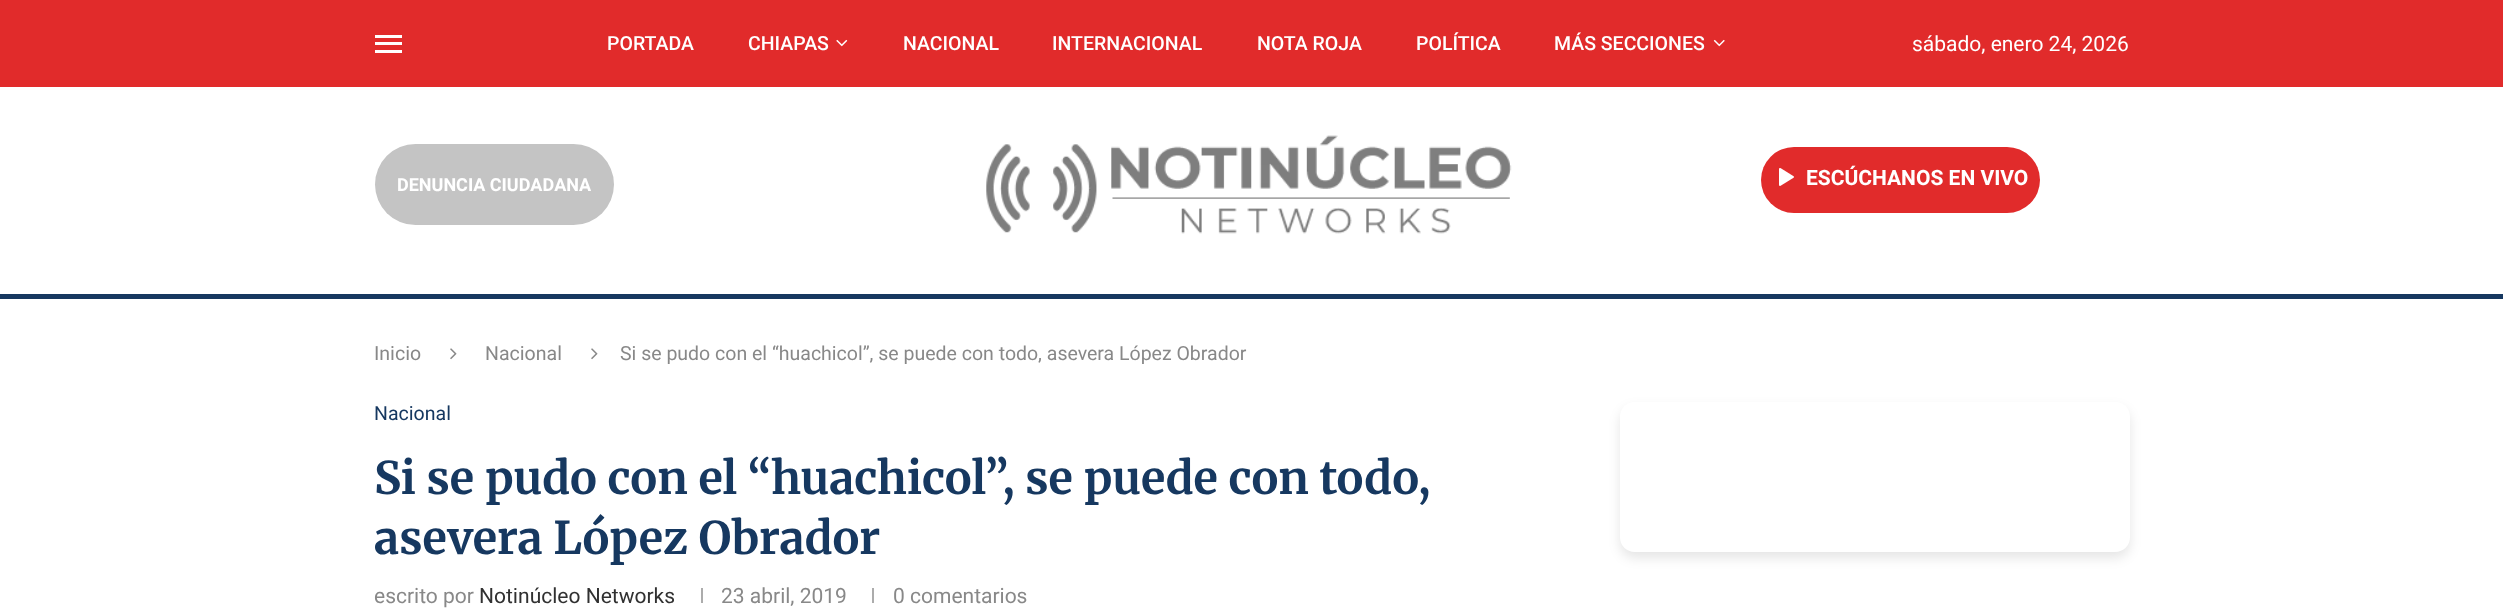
<svg xmlns="http://www.w3.org/2000/svg" width="2503" height="608">
<defs>
<clipPath id="clip1"><path d="M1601 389h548v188h-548zm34 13h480c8.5 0 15 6.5 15 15v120c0 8.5-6.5 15-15 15h-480c-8.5 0-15-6.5-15-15v-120c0-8.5 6.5-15 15-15z" clip-rule="evenodd"/></clipPath>
</defs>
<rect width="100%" height="100%" fill="#fff"/>
<rect width="2503" height="87" fill="#e12b2b"/>
<rect x="375" y="35" width="27" height="3" fill="#fff"/>
<rect x="375" y="50" width="27" height="3" fill="#fff"/>
<rect x="375" y="42" width="27" height="3" fill="#fff"/>
<text x="607" y="50" style="font-family:Roboto;font-size:19.5px;font-weight:500;fill:#fff">PORTADA</text>
<text x="748" y="50" style="font-family:Roboto;font-size:19.5px;font-weight:500;fill:#fff">CHIAPAS</text>
<image x="836" y="39" width="12" height="8" href="media/1.png"/>
<text x="903" y="50" style="font-family:Roboto;font-size:19.5px;font-weight:500;fill:#fff">NACIONAL</text>
<text x="1052" y="50" style="font-family:Roboto;font-size:19.5px;font-weight:500;fill:#fff">INTERNACIONAL</text>
<text x="1257" y="50" style="font-family:Roboto;font-size:19.5px;font-weight:500;fill:#fff">NOTA ROJA</text>
<text x="1416" y="50" style="font-family:Roboto;font-size:19.5px;font-weight:500;fill:#fff">POLÍTICA</text>
<text x="1554" y="50" style="font-family:Roboto;font-size:19.5px;font-weight:500;fill:#fff">MÁS SECCIONES</text>
<image x="1713" y="39" width="12" height="8" href="media/2.png"/>
<text x="1912" y="51" style="font-family:Roboto;font-size:21px;fill:#fff">sábado, enero 24, 2026</text>
<rect y="294" width="2503" height="5" fill="#163860"/>
<rect x="375" y="144" width="239" height="81" rx="40.5" fill="#c4c4c4"/>
<text x="397" y="191" style="font-family:Heebo;font-size:18px;font-weight:bold;fill:#fff">DENUNCIA CIUDADANA</text>
<image x="986" y="135" width="526" height="99" href="media/3.png"/>
<rect x="1761" y="147" width="279" height="66" rx="33" fill="#e12b2b"/>
<image x="1779" y="168" width="15" height="18" href="media/4.png"/>
<text x="1806" y="185" style="font-family:Heebo;font-size:21px;font-weight:bold;fill:#fff">ESCÚCHANOS EN VIVO</text>
<text x="374" y="360" style="font-family:Heebo;font-size:19.5px;fill:#888">Inicio</text>
<image x="450" y="348" width="7" height="12" href="media/5.png"/>
<text x="485" y="360" style="font-family:Heebo;font-size:19.5px;fill:#888">Nacional</text>
<image x="591" y="348" width="7" height="12" href="media/5.png"/>
<text x="620" y="360" style="font-family:Roboto;font-size:19.5px;fill:#888">Si se pudo con el “huachicol”, se puede con todo, asevera López Obrador</text>
<text x="374" y="420" style="font-family:Heebo;font-size:19.5px;fill:#163860">Nacional</text>
<text x="374" y="494" style="font-family:Merriweather;font-size:45px;font-weight:bold;fill:#163860">Si se pudo con el “huachicol”, se puede con todo,</text>
<text x="374" y="554" style="font-family:Merriweather;font-size:45px;font-weight:bold;fill:#163860">asevera López Obrador</text>
<text x="374" y="603" style="font-family:Roboto;font-size:21px;fill:#888">escrito por</text>
<text x="479" y="603" style="font-family:Heebo;font-size:21px;fill:#313131">Notinúcleo Networks</text>
<rect x="701" y="588" width="2" height="15" fill="#acacac"/>
<text x="721" y="603" style="font-family:Roboto;font-size:21px;fill:#888">23 abril, 2019</text>
<rect x="872" y="588" width="2" height="15" fill="#acacac"/>
<text x="893" y="603" style="font-family:Roboto;font-size:21px;fill:#888">0 comentarios</text>
<g clip-path="url(#clip1)">
<rect x="1620" y="408" width="510" height="150" rx="15" fill="#0000001a" filter="blur(6px)"/>
</g>
</svg>
